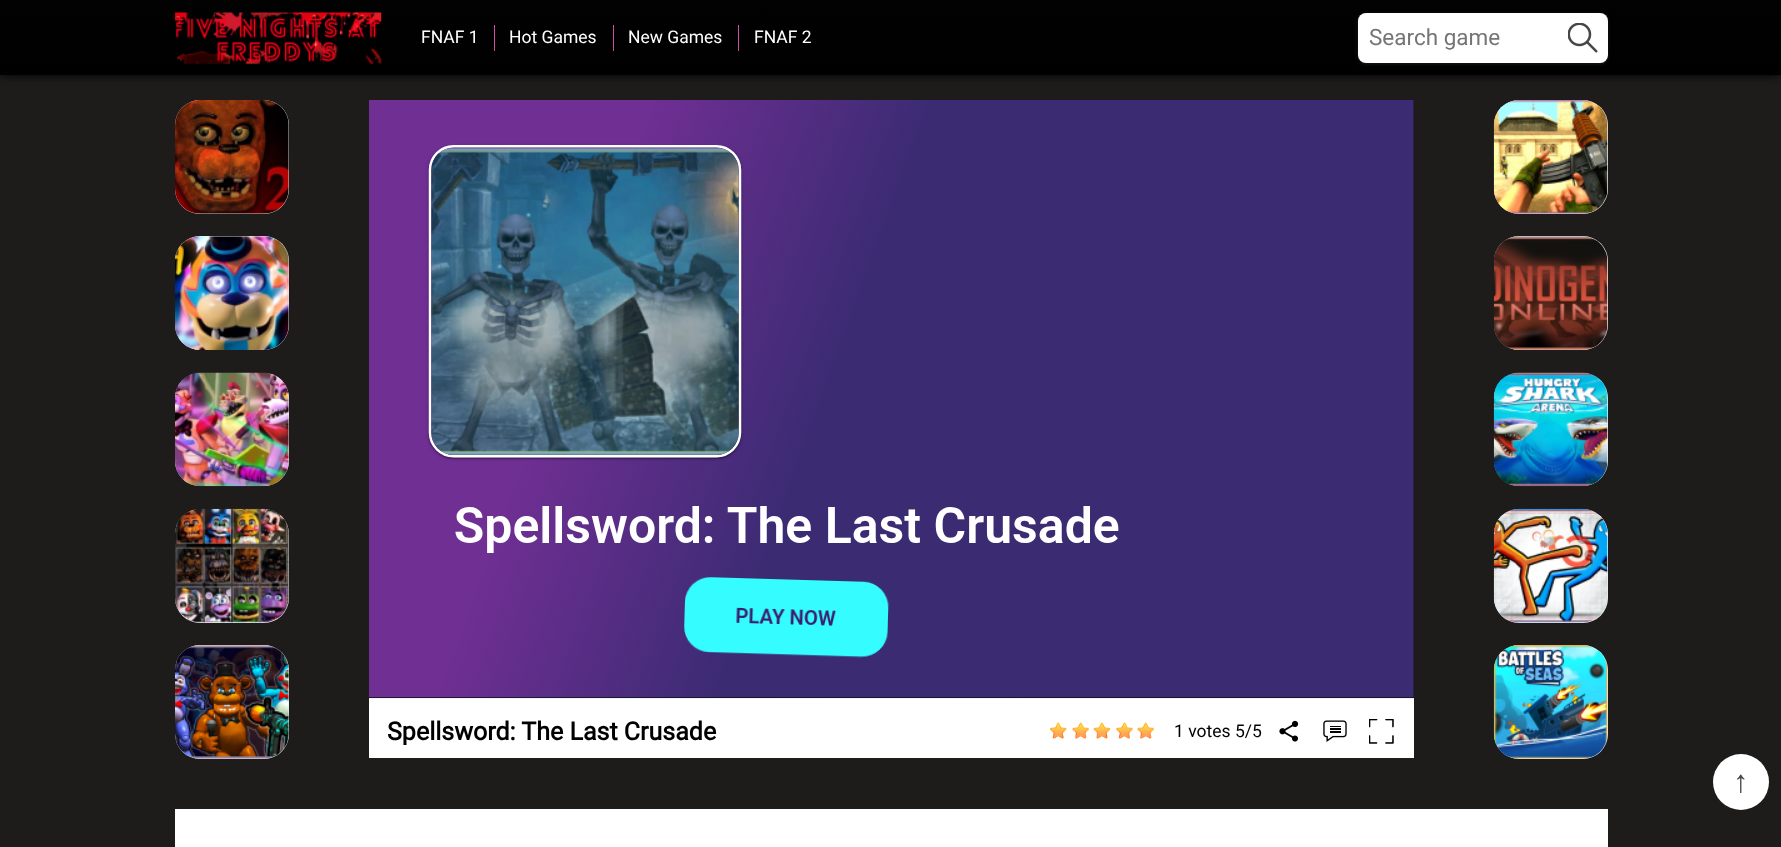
<svg xmlns="http://www.w3.org/2000/svg" width="1781" height="847">
<defs>
<linearGradient id="g1" gradientUnits="userSpaceOnUse" x1="891" y1="0" x2="891" y2="75"><stop offset="0" stop-color="#020202"/><stop offset="1" stop-color="#000"/></linearGradient>
<radialGradient id="g2" gradientUnits="userSpaceOnUse" cx="0" cy="0" r="1" gradientTransform="matrix(523 0 0 329 891 429)"><stop offset="0" stop-color="#121010"/><stop offset="1" stop-color="#0f0e0e"/></radialGradient>
</defs>
<rect width="100%" height="100%" fill="#1e1b1b"/>
<rect width="1781" height="75" fill="#000" filter="blur(5px)"/>
<rect width="1781" height="75" fill="url(#g1)"/>
<image x="174" y="12" width="208" height="52" href="media/1.png"/>
<rect x="494" y="25" width="1" height="26" fill="#ce4fa1"/>
<text x="421" y="43" style="font-family:Roboto;font-size:17.5px;fill:#fff">FNAF 1</text>
<rect x="613" y="25" width="1" height="26" fill="#ce4fa1"/>
<text x="509" y="43" style="font-family:Roboto;font-size:17.5px;fill:#fff">Hot Games</text>
<rect x="738" y="25" width="1" height="26" fill="#ce4fa1"/>
<text x="628" y="43" style="font-family:Roboto;font-size:17.5px;fill:#fff">New Games</text>
<text x="754" y="43" style="font-family:Roboto;font-size:17.5px;fill:#fff">FNAF 2</text>
<rect x="1356" y="13" width="253" height="52" rx="9" fill="#3c404326" filter="blur(2px)"/>
<rect x="1358" y="14" width="250" height="50" rx="8" fill="#3c40434d" filter="blur(1px)"/>
<rect x="1358" y="13" width="250" height="50" rx="8" fill="#fff"/>
<text x="1369" y="45" style="font-family:Roboto;font-size:22.5px;fill:#757575">Search game</text>
<image x="1568" y="23" width="30" height="30" href="media/2.png"/>
<rect x="175" y="100" width="114" height="114" rx="25" fill="#e9eff2"/>
<image x="175" y="100" width="114" height="114" href="media/3.png"/>
<rect x="175" y="236" width="114" height="114" rx="25" fill="#e9eff2"/>
<image x="175" y="236" width="114" height="114" href="media/4.png"/>
<rect x="175" y="373" width="114" height="113" rx="25" fill="#e9eff2"/>
<image x="175" y="372" width="114" height="115" href="media/5.png"/>
<rect x="175" y="509" width="114" height="114" rx="25" fill="#e9eff2"/>
<image x="175" y="508" width="114" height="115" href="media/6.png"/>
<rect x="175" y="645" width="114" height="114" rx="25" fill="#e9eff2"/>
<image x="175" y="645" width="114" height="114" href="media/7.png"/>
<rect x="369" y="100" width="1045" height="598" fill="url(#g2)"/>
<image x="368" y="100" width="1046" height="598" href="media/8.png"/>
<rect x="369" y="699" width="1045" height="59" fill="#fff"/>
<rect x="369" y="698" width="1045" height="1" fill="#edf3f7"/>
<text x="387" y="740" style="font-family:Roboto;font-size:25px;font-weight:bold;fill:#000">Spellsword: The Last Crusade</text>
<image x="1050" y="722" width="17" height="17" href="media/9.png"/>
<image x="1072" y="722" width="18" height="17" href="media/10.png"/>
<image x="1093" y="722" width="18" height="17" href="media/11.png"/>
<image x="1116" y="722" width="17" height="17" href="media/12.png"/>
<image x="1137" y="722" width="18" height="17" href="media/10.png"/>
<text x="1174" y="737" style="font-family:Roboto;font-size:17.5px;fill:#000">1 votes 5/5</text>
<image x="1279" y="720" width="20" height="22" href="media/13.png"/>
<image x="1323" y="720" width="24" height="22" href="media/14.png"/>
<image x="1369" y="719" width="25" height="25" href="media/15.png"/>
<rect x="1494" y="100" width="114" height="114" rx="25" fill="#e9eff2"/>
<image x="1493" y="100" width="115" height="114" href="media/16.png"/>
<rect x="1494" y="236" width="114" height="114" rx="25" fill="#e9eff2"/>
<image x="1493" y="236" width="115" height="114" href="media/17.png"/>
<rect x="1494" y="373" width="114" height="113" rx="25" fill="#e9eff2"/>
<image x="1493" y="372" width="115" height="115" href="media/18.png"/>
<rect x="1494" y="509" width="114" height="114" rx="25" fill="#e9eff2"/>
<image x="1493" y="508" width="115" height="115" href="media/19.png"/>
<rect x="1494" y="645" width="114" height="114" rx="25" fill="#e9eff2"/>
<image x="1493" y="645" width="115" height="114" href="media/20.png"/>
<rect x="175" y="809" width="1433" height="38" fill="#fff"/>
<circle cx="1741" cy="782" r="28" fill="#fff"/>
<text x="1733" y="792" style="font-family:Liberation Sans;font-size:31px;fill:#464646">↑</text>
</svg>
